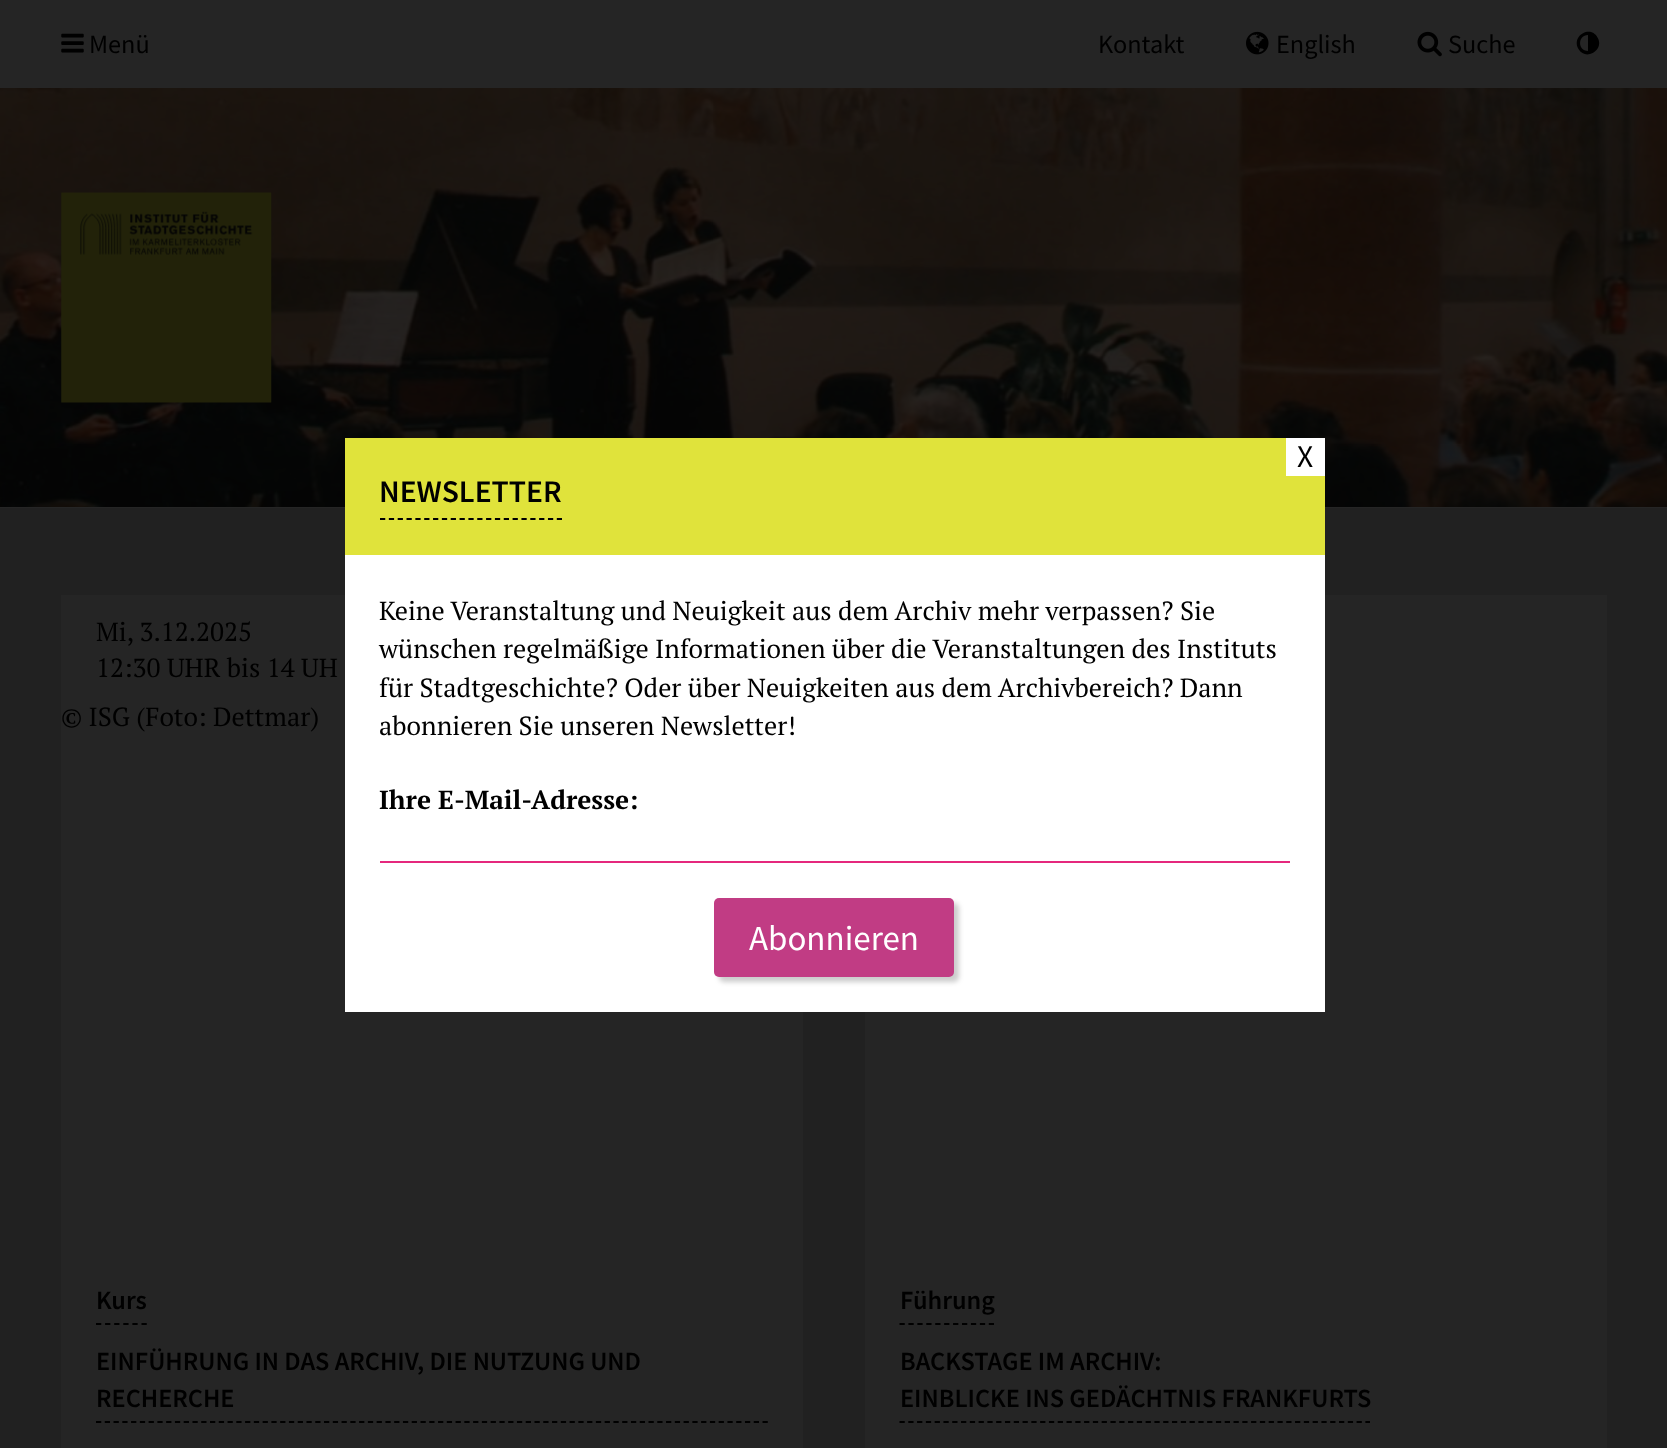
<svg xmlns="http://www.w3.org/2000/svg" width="1667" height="1448">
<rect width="100%" height="100%" fill="#212121"/>
<rect width="1667" height="88" fill="#252525"/>
<image x="61" y="33" width="23" height="20" href="media/1.png"/>
<text x="89" y="53" style="font-family:Source Sans Pro;font-size:26.25px;fill:#000">Menü</text>
<text x="1098" y="53" style="font-family:Source Sans Pro;font-size:26.25px;fill:#000">Kontakt</text>
<image x="1246" y="31" width="23" height="24" href="media/2.png"/>
<text x="1276" y="53" style="font-family:Source Sans Pro;font-size:26.25px;fill:#000">English</text>
<image x="1417" y="31" width="25" height="26" href="media/3.png"/>
<text x="1448" y="53" style="font-family:Source Sans Pro;font-size:26.25px;fill:#000">Suche</text>
<path d="M1588 51v-16c-10.5 0-10.5 16 0 16zm9.5-13.5c7.5 12.5-12 24-19 11.5c-7.5-13 12-24.5 19-11.5z" fill="#000"/>
<rect y="507" width="1667" height="1" fill="#252525"/>
<image x="0" y="88" width="1667" height="419" href="media/4.png"/>
<image x="61" y="192" width="211" height="211" href="media/5.png"/>
<rect x="61" y="595" width="742" height="853" fill="#252525"/>
<text x="96" y="641" style="font-family:PT Serif;font-size:26.25px;fill:#000">Mi, 3.12.2025</text>
<text x="96" y="677" style="font-family:PT Serif;font-size:26.25px;fill:#000">12:30 UHR bis 14 UH</text>
<text x="61" y="726" style="font-family:PT Serif;font-size:26.25px;fill:#000">© ISG (Foto: Dettmar)</text>
<path d="M96 1324h51" fill="none" stroke="#000" stroke-width="1.8" stroke-dasharray="5.25 3.85"/>
<text x="96" y="1309" style="font-family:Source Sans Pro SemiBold;font-size:26.25px;font-weight:600;fill:#000">Kurs</text>
<path d="M96 1422h672" fill="none" stroke="#000" stroke-width="1.8" stroke-dasharray="5.25 3.52"/>
<text x="96" y="1370" style="font-family:Source Sans Pro SemiBold;font-size:26.25px;font-weight:600;fill:#000">EINFÜHRUNG IN DAS ARCHIV, DIE NUTZUNG UND</text>
<text x="96" y="1407" style="font-family:Source Sans Pro SemiBold;font-size:26.25px;font-weight:600;fill:#000">RECHERCHE</text>
<rect x="865" y="595" width="742" height="853" fill="#252525"/>
<path d="M899.5 1324h94.5" fill="none" stroke="#000" stroke-width="1.8" stroke-dasharray="5.25 3.68"/>
<text x="900" y="1309" style="font-family:Source Sans Pro SemiBold;font-size:26.25px;font-weight:600;fill:#000">Führung</text>
<path d="M899.5 1422h470.5" fill="none" stroke="#000" stroke-width="1.8" stroke-dasharray="5.25 3.54"/>
<text x="900" y="1370" style="font-family:Source Sans Pro SemiBold;font-size:26.25px;font-weight:600;fill:#000">BACKSTAGE IM ARCHIV:</text>
<text x="900" y="1407" style="font-family:Source Sans Pro SemiBold;font-size:26.25px;font-weight:600;fill:#000">EINBLICKE INS GEDÄCHTNIS FRANKFURTS</text>
<rect x="345" y="555" width="980" height="457" fill="#fff"/>
<rect x="345" y="438" width="980" height="117" fill="#e0e33b"/>
<rect x="1286" y="438" width="39" height="38" fill="#fff"/>
<text x="1297" y="467" style="font-family:Source Sans Pro;font-size:31.5px;fill:#000">X</text>
<path d="M380 519h182" fill="none" stroke="#000" stroke-width="1.8" stroke-dasharray="5.25 3.59"/>
<text x="379" y="502" style="font-family:Source Sans Pro SemiBold;font-size:31.5px;font-weight:600;fill:#000">NEWSLETTER</text>
<text x="379" y="620" style="font-family:PT Serif;font-size:26.25px;fill:#000">Keine Veranstaltung und Neuigkeit aus dem Archiv mehr verpassen? Sie</text>
<text x="379" y="658" style="font-family:PT Serif;font-size:26.25px;fill:#000">wünschen regelmäßige Informationen über die Veranstaltungen des Instituts</text>
<text x="379" y="697" style="font-family:PT Serif;font-size:26.25px;fill:#000">für Stadtgeschichte? Oder über Neuigkeiten aus dem Archivbereich? Dann</text>
<text x="379" y="735" style="font-family:PT Serif;font-size:26.25px;fill:#000">abonnieren Sie unseren Newsletter!</text>
<text x="379" y="809" style="font-family:PT Serif;font-size:26.25px;font-weight:bold;fill:#000">Ihre E-Mail-Adresse:</text>
<rect x="380" y="861" width="910" height="2" fill="#e5287d"/>
<rect x="719" y="903" width="240" height="79" rx="5" fill="#00000033" filter="blur(2.5px)"/>
<rect x="714" y="898" width="240" height="79" rx="5" fill="#c13c84"/>
<text x="749" y="950" style="font-family:Source Sans Pro;font-size:35px;fill:#fff">Abonnieren</text>
</svg>
